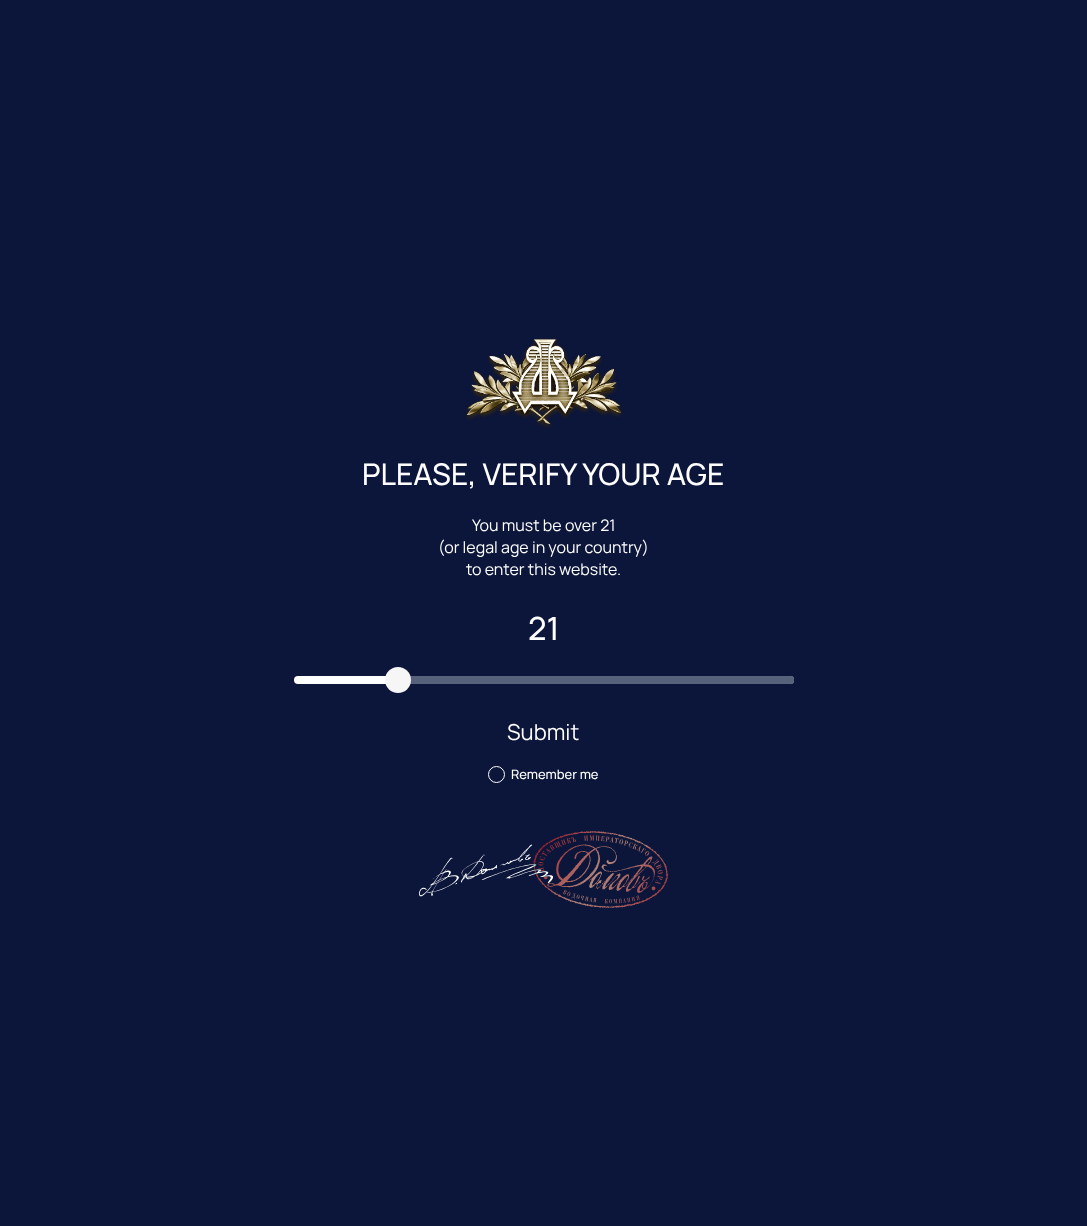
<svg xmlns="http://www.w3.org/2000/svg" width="1087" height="1226">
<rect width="100%" height="100%" fill="#0c163a"/>
<image x="465" y="338" width="157" height="91" href="media/1.png"/>
<text x="362" y="485" style="font-family:Manrope;font-size:30px;font-weight:500;fill:#fff">PLEASE, VERIFY YOUR AGE</text>
<text x="472" y="531" style="font-family:Manrope;font-size:16px;fill:#fff">You must be over 21</text>
<text x="438" y="553" style="font-family:Manrope;font-size:16px;fill:#fff">(or legal age in your country)</text>
<text x="466" y="575" style="font-family:Manrope;font-size:16px;fill:#fff">to enter this website.</text>
<text x="528" y="640" style="font-family:Manrope;font-size:32px;font-weight:500;fill:#fff">21</text>
<rect x="294" y="676" width="500" height="8" rx="4" fill="#fff"/>
<rect x="395" y="676" width="399" height="8" rx="3" fill="#56627c"/>
<circle cx="398" cy="680" r="13" fill="#f6f6f6"/>
<text x="507" y="740" style="font-family:Manrope;font-size:22px;fill:#fff">Submit</text>
<circle cx="496.5" cy="774.5" r="8" fill="none" stroke="#fff"/>
<text x="511" y="779" style="font-family:Manrope;font-size:13px;font-weight:500;fill:#fff">Remember me</text>
<image x="419" y="831" width="249" height="77" href="media/2.png"/>
</svg>
